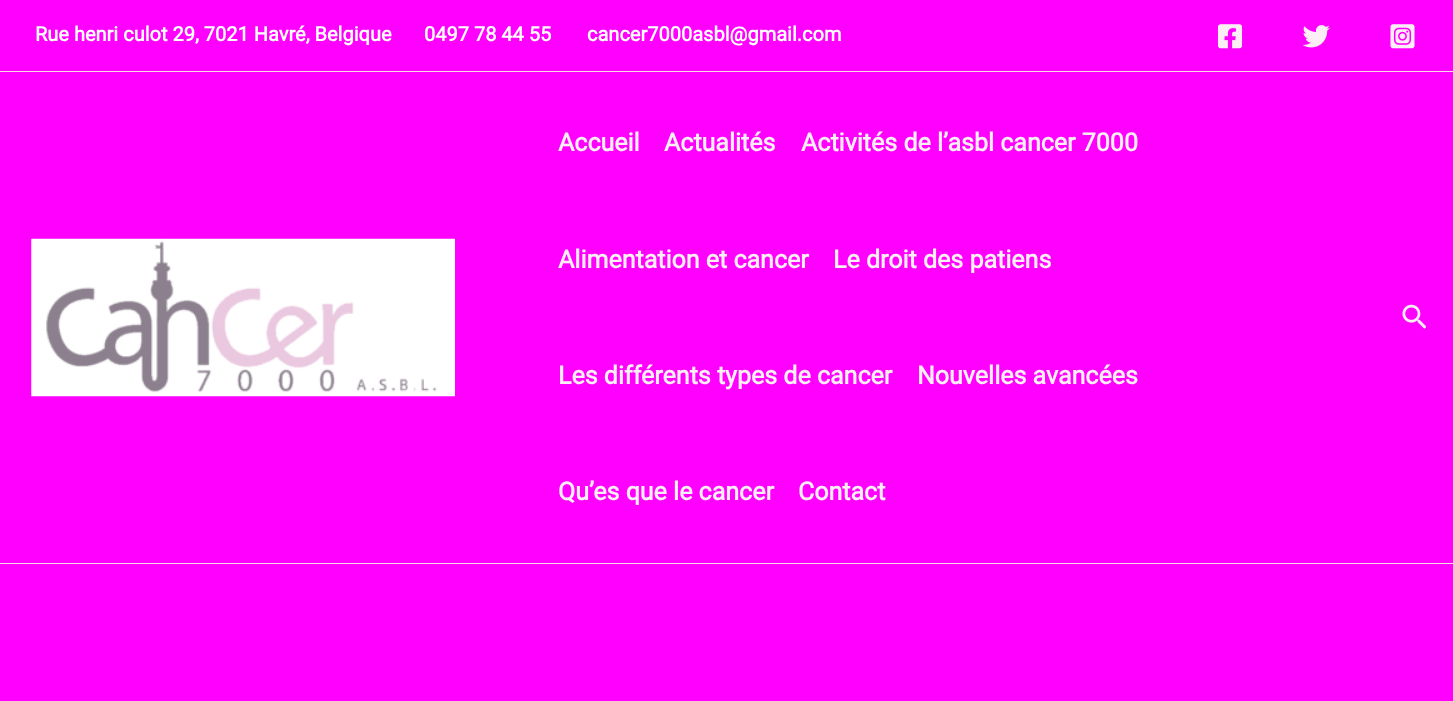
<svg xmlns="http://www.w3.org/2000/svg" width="1453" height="701">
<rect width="100%" height="100%" fill="#f0f"/>
<rect y="71" width="1453" height="1" fill="#fad8e9"/>
<text x="35" y="41" style="font-family:Roboto;font-size:20px;font-weight:bold;fill:#fff">Rue henri culot 29, 7021 Havré, Belgique</text>
<text x="424" y="41" style="font-family:Roboto;font-size:20px;font-weight:bold;fill:#fff">0497 78 44 55</text>
<text x="587" y="41" style="font-family:Roboto;font-size:20px;font-weight:bold;fill:#fff">cancer7000asbl@gmail.com</text>
<image x="1217" y="24" width="26" height="25" href="media/1.png"/>
<image x="1303" y="25" width="27" height="23" href="media/2.png"/>
<image x="1390" y="24" width="25" height="25" href="media/3.png"/>
<rect y="563" width="1453" height="1" fill="#fad8e9"/>
<image x="31" y="238" width="424" height="159" href="media/4.png"/>
<text x="558" y="151" style="font-family:Roboto;font-size:25px;font-weight:bold;fill:#fceef5">Accueil</text>
<text x="664" y="151" style="font-family:Roboto;font-size:25px;font-weight:bold;fill:#fceef5">Actualités</text>
<text x="801" y="151" style="font-family:Roboto;font-size:25px;font-weight:bold;fill:#fceef5">Activités de l’asbl cancer 7000</text>
<text x="558" y="268" style="font-family:Roboto;font-size:25px;font-weight:bold;fill:#fceef5">Alimentation et cancer</text>
<text x="833" y="268" style="font-family:Roboto;font-size:25px;font-weight:bold;fill:#fceef5">Le droit des patiens</text>
<text x="558" y="384" style="font-family:Roboto;font-size:25px;font-weight:bold;fill:#fceef5">Les différents types de cancer</text>
<text x="917" y="384" style="font-family:Roboto;font-size:25px;font-weight:bold;fill:#fceef5">Nouvelles avancées</text>
<text x="558" y="500" style="font-family:Roboto;font-size:25px;font-weight:bold;fill:#fceef5">Qu’es que le cancer</text>
<text x="798" y="500" style="font-family:Roboto;font-size:25px;font-weight:bold;fill:#fceef5">Contact</text>
<image x="1402" y="304" width="24" height="25" href="media/5.png"/>
</svg>
